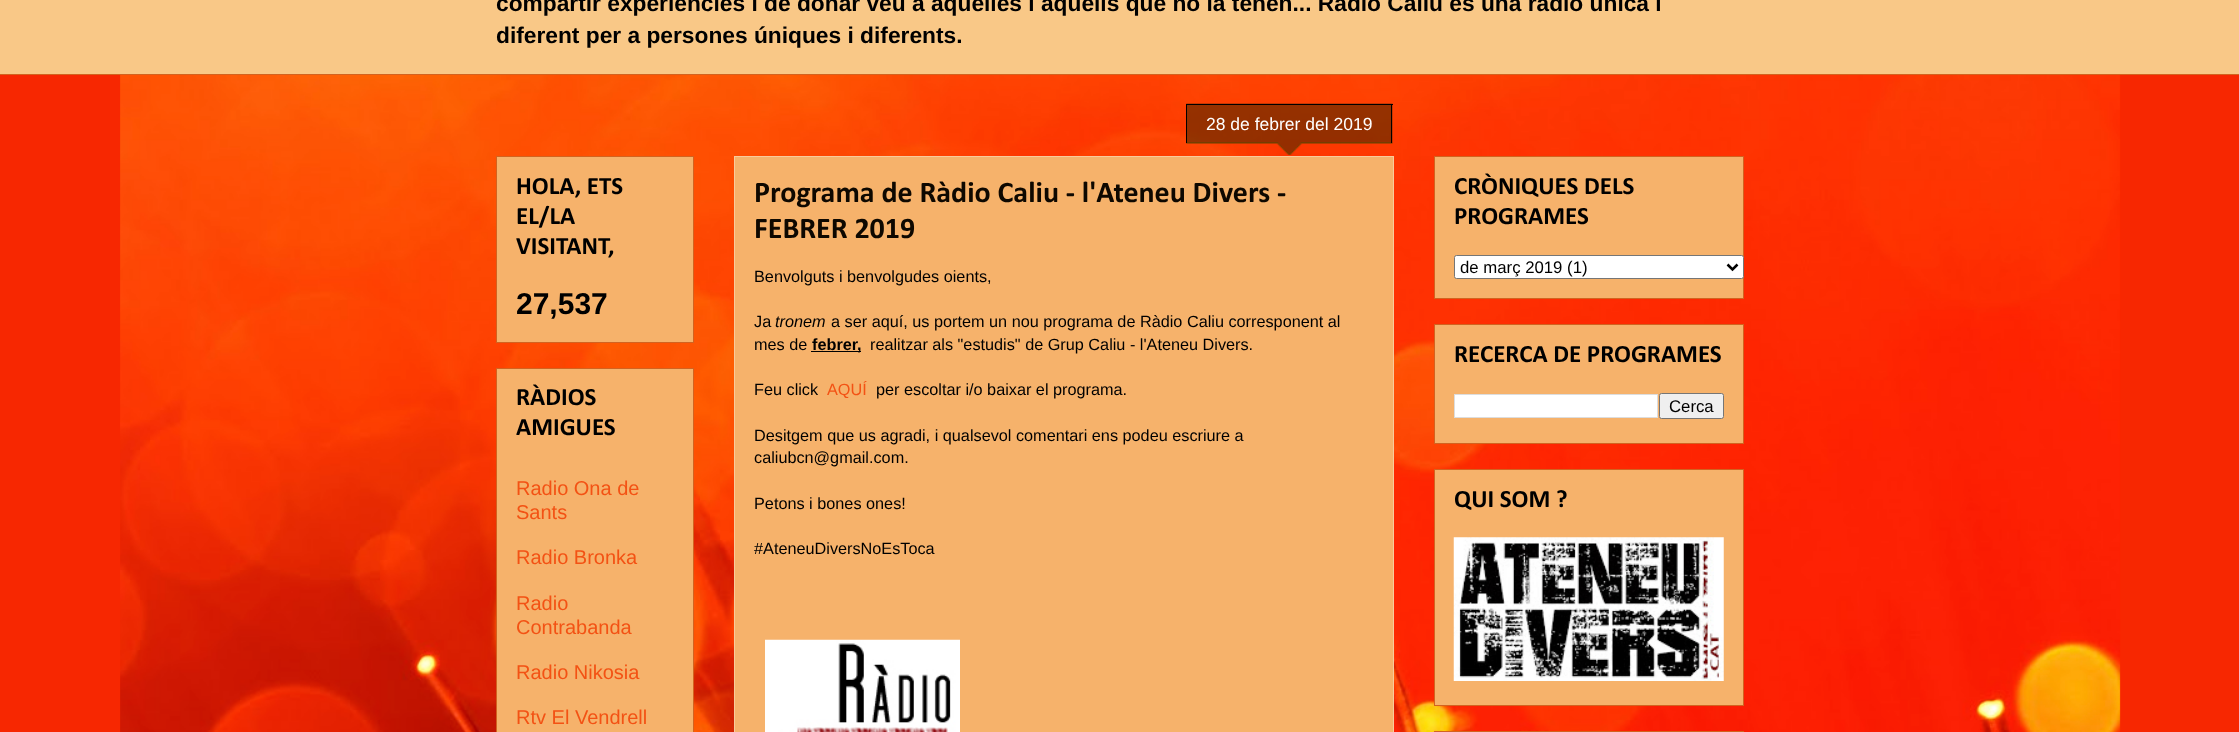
<svg xmlns="http://www.w3.org/2000/svg" width="2239" height="732">
<rect width="100%" height="100%" fill="#f72701"/>
<image x="120" y="75" width="2001" height="657" href="media/1.png"/>
<rect width="2239" height="74" fill="#f9c887"/>
<text x="496" y="11" style="font-family:Liberation Sans;font-size:22.75px;font-weight:bold;fill:#000">compartir experiències i de donar veu a aquelles i aquells que no la tenen... Ràdio Caliu és una ràdio única i</text>
<text x="496" y="43" style="font-family:Liberation Sans;font-size:22.75px;font-weight:bold;fill:#000">diferent per a persones úniques i diferents.</text>
<rect y="74" width="2239" height="1" fill="#d26320"/>
<rect x="496.5" y="156.5" width="197" height="186" fill="#f6b26b" stroke="#d26320"/>
<text x="516" y="194" style="font-family:Calibri;font-size:25px;font-weight:bold;fill:#000">HOLA, ETS</text>
<text x="516" y="224" style="font-family:Calibri;font-size:25px;font-weight:bold;fill:#000">EL/LA</text>
<text x="516" y="254" style="font-family:Calibri;font-size:25px;font-weight:bold;fill:#000">VISITANT,</text>
<text x="516" y="314" style="font-family:Liberation Sans;font-size:30px;font-weight:bold;fill:#000">27,537</text>
<rect x="496.5" y="368.5" width="197" height="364" fill="#f6b26b" stroke="#d26320"/>
<text x="516" y="405" style="font-family:Calibri;font-size:25px;font-weight:bold;fill:#000">RÀDIOS</text>
<text x="516" y="435" style="font-family:Calibri;font-size:25px;font-weight:bold;fill:#000">AMIGUES</text>
<text x="516" y="495" style="font-family:Liberation Sans;font-size:20px;fill:#f35214">Radio Ona de</text>
<text x="516" y="519" style="font-family:Liberation Sans;font-size:20px;fill:#f35214">Sants</text>
<text x="516" y="564" style="font-family:Liberation Sans;font-size:20px;fill:#f35214">Radio Bronka</text>
<text x="516" y="610" style="font-family:Liberation Sans;font-size:20px;fill:#f35214">Radio</text>
<text x="516" y="634" style="font-family:Liberation Sans;font-size:20px;fill:#f35214">Contrabanda</text>
<text x="516" y="679" style="font-family:Liberation Sans;font-size:20px;fill:#f35214">Radio Nikosia</text>
<text x="516" y="724" style="font-family:Liberation Sans;font-size:20px;fill:#f35214">Rtv El Vendrell</text>
<rect x="734.5" y="156.5" width="659" height="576" fill="#f6b26b" stroke="#f9cb9c"/>
<image x="1186" y="103" width="207" height="52" href="media/2.png"/>
<rect x="1186" y="104" width="207" height="1" fill="#000"/>
<rect x="1391" y="105" width="1" height="38" fill="#000"/>
<rect x="1186" y="105" width="1" height="38" fill="#000"/>
<text x="1206" y="130" style="font-family:Liberation Sans;font-size:17.5px;fill:#fff">28 de febrer del 2019</text>
<text x="754" y="202" style="font-family:Calibri;font-size:30px;font-weight:bold;fill:#0e0800">Programa de Ràdio Caliu - l'Ateneu Divers -</text>
<text x="754" y="238" style="font-family:Calibri;font-size:30px;font-weight:bold;fill:#0e0800">FEBRER 2019</text>
<text x="754" y="282" style="font-family:Liberation Sans;font-size:16.25px;fill:#000">Benvolguts i benvolgudes oients,</text>
<text x="754" y="327" style="font-family:Liberation Sans;font-size:16.25px;fill:#000">Ja</text>
<text x="775" y="327" style="font-family:Liberation Sans;font-size:16.25px;font-style:italic;fill:#000">tronem</text>
<text x="831" y="327" style="font-family:Liberation Sans;font-size:16.25px;fill:#000">a ser aquí, us portem un nou programa de Ràdio Caliu corresponent al</text>
<text x="754" y="350" style="font-family:Liberation Sans;font-size:16.25px;fill:#000">mes de</text>
<text x="812" y="350" style="font-family:Liberation Sans;font-size:16.25px;font-weight:bold;fill:#000">febrer</text>
<rect x="811" y="351" width="50" height="1" fill="#000"/>
<text x="857" y="350" style="font-family:Liberation Sans;font-size:16.25px;font-weight:bold;fill:#000">,</text>
<text x="870" y="350" style="font-family:Liberation Sans;font-size:16.25px;fill:#000">realitzar als "estudis" de Grup Caliu - l'Ateneu Divers.</text>
<text x="754" y="395" style="font-family:Liberation Sans;font-size:16.25px;fill:#000">Feu click</text>
<text x="827" y="395" style="font-family:Liberation Sans;font-size:16.25px;fill:#f35214">AQUÍ</text>
<text x="876" y="395" style="font-family:Liberation Sans;font-size:16.25px;fill:#000">per escoltar i/o baixar el programa.</text>
<text x="754" y="441" style="font-family:Liberation Sans;font-size:16.25px;fill:#000">Desitgem que us agradi, i qualsevol comentari ens podeu escriure a</text>
<text x="754" y="463" style="font-family:Liberation Sans;font-size:16.25px;fill:#000">caliubcn@gmail.com.</text>
<text x="754" y="509" style="font-family:Liberation Sans;font-size:16.25px;fill:#000">Petons i bones ones!</text>
<text x="754" y="554" style="font-family:Liberation Sans;font-size:16.25px;fill:#000">#AteneuDiversNoEsToca</text>
<image x="765" y="639" width="195" height="93" href="media/3.png"/>
<rect x="1434.5" y="156.5" width="309" height="142" fill="#f6b26b" stroke="#d26320"/>
<text x="1454" y="194" style="font-family:Calibri;font-size:25px;font-weight:bold;fill:#000">CRÒNIQUES DELS</text>
<text x="1454" y="224" style="font-family:Calibri;font-size:25px;font-weight:bold;fill:#000">PROGRAMES</text>
<rect x="1454.5" y="255.5" width="289" height="23" rx="2" fill="#fff" stroke="#767676"/>
<path d="M1727.5 264.5l5 5l5-5" fill="none" stroke="#000" stroke-width="2.5"/>
<text x="1460" y="273" style="font-family:Liberation Sans;font-size:16.75px;fill:#000">de març 2019 (1)</text>
<rect x="1434.5" y="324.5" width="309" height="119" fill="#f6b26b" stroke="#d26320"/>
<text x="1454" y="362" style="font-family:Calibri;font-size:25px;font-weight:bold;fill:#000">RECERCA DE PROGRAMES</text>
<rect x="1454.5" y="394.5" width="203" height="23" fill="#fff" stroke="#ddd"/>
<rect x="1659.5" y="393.5" width="64" height="25" rx="2" fill="#efefef" stroke="#767676"/>
<text x="1669" y="412" style="font-family:Liberation Sans;font-size:16.75px;fill:#000">Cerca</text>
<rect x="1434.5" y="469.5" width="309" height="236" fill="#f6b26b" stroke="#d26320"/>
<text x="1454" y="507" style="font-family:Calibri;font-size:25px;font-weight:bold;fill:#000">QUI SOM ?</text>
<image x="1453" y="537" width="271" height="144" href="media/4.png"/>
<rect x="1434.5" y="731.5" width="309" height="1" fill="none" stroke="#d26320"/>
</svg>
